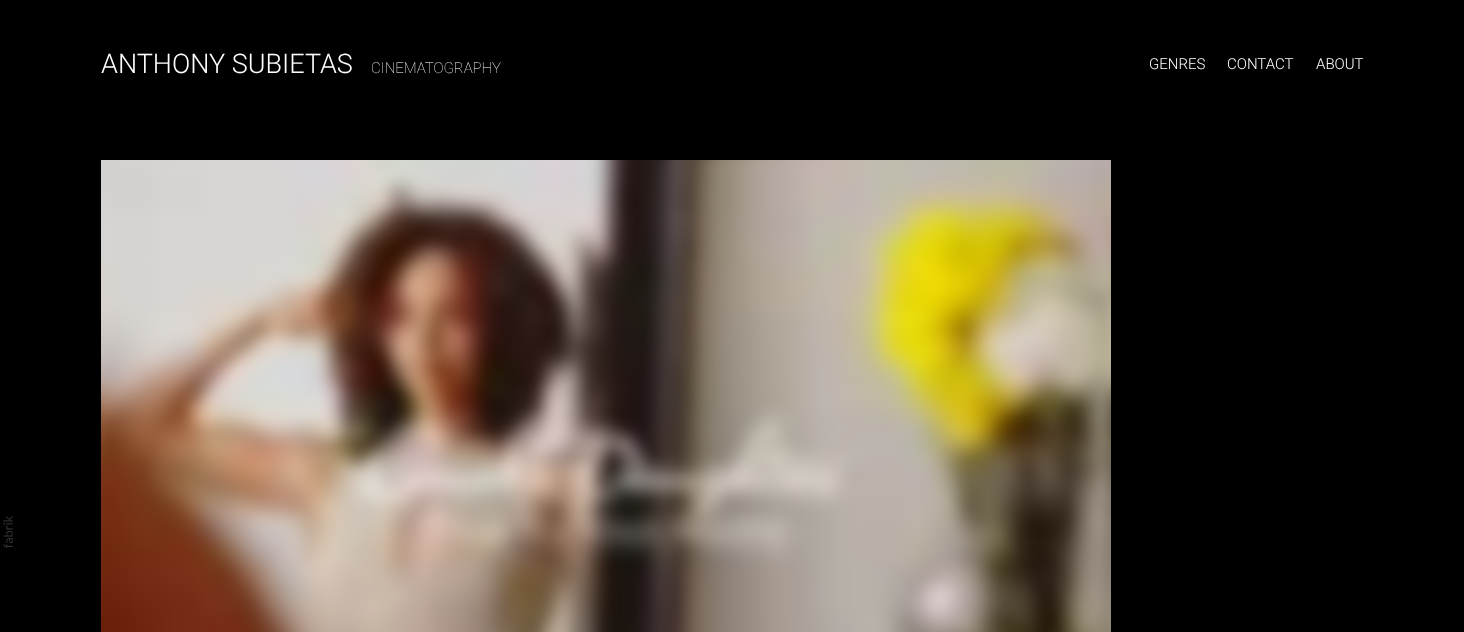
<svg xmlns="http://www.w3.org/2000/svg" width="1464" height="632">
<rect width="100%" height="100%" fill="#000"/>
<text x="101" y="73" style="font-family:Roboto;font-size:27px;font-weight:300;fill:#fff">ANTHONY SUBIETAS</text>
<text x="371" y="73" style="font-family:Roboto;font-size:15px;font-weight:100;fill:#fff">CINEMATOGRAPHY</text>
<text x="1149" y="69" style="font-family:Roboto;font-size:15px;font-weight:300;fill:#fff">GENRES</text>
<text x="1227" y="69" style="font-family:Roboto;font-size:15px;font-weight:300;fill:#fff">CONTACT</text>
<text x="1316" y="69" style="font-family:Roboto;font-size:15px;font-weight:300;fill:#fff">ABOUT</text>
<image x="101" y="160" width="1010" height="472" href="media/1.png"/>
<image x="3" y="516" width="10" height="32" href="media/2.png"/>
</svg>
